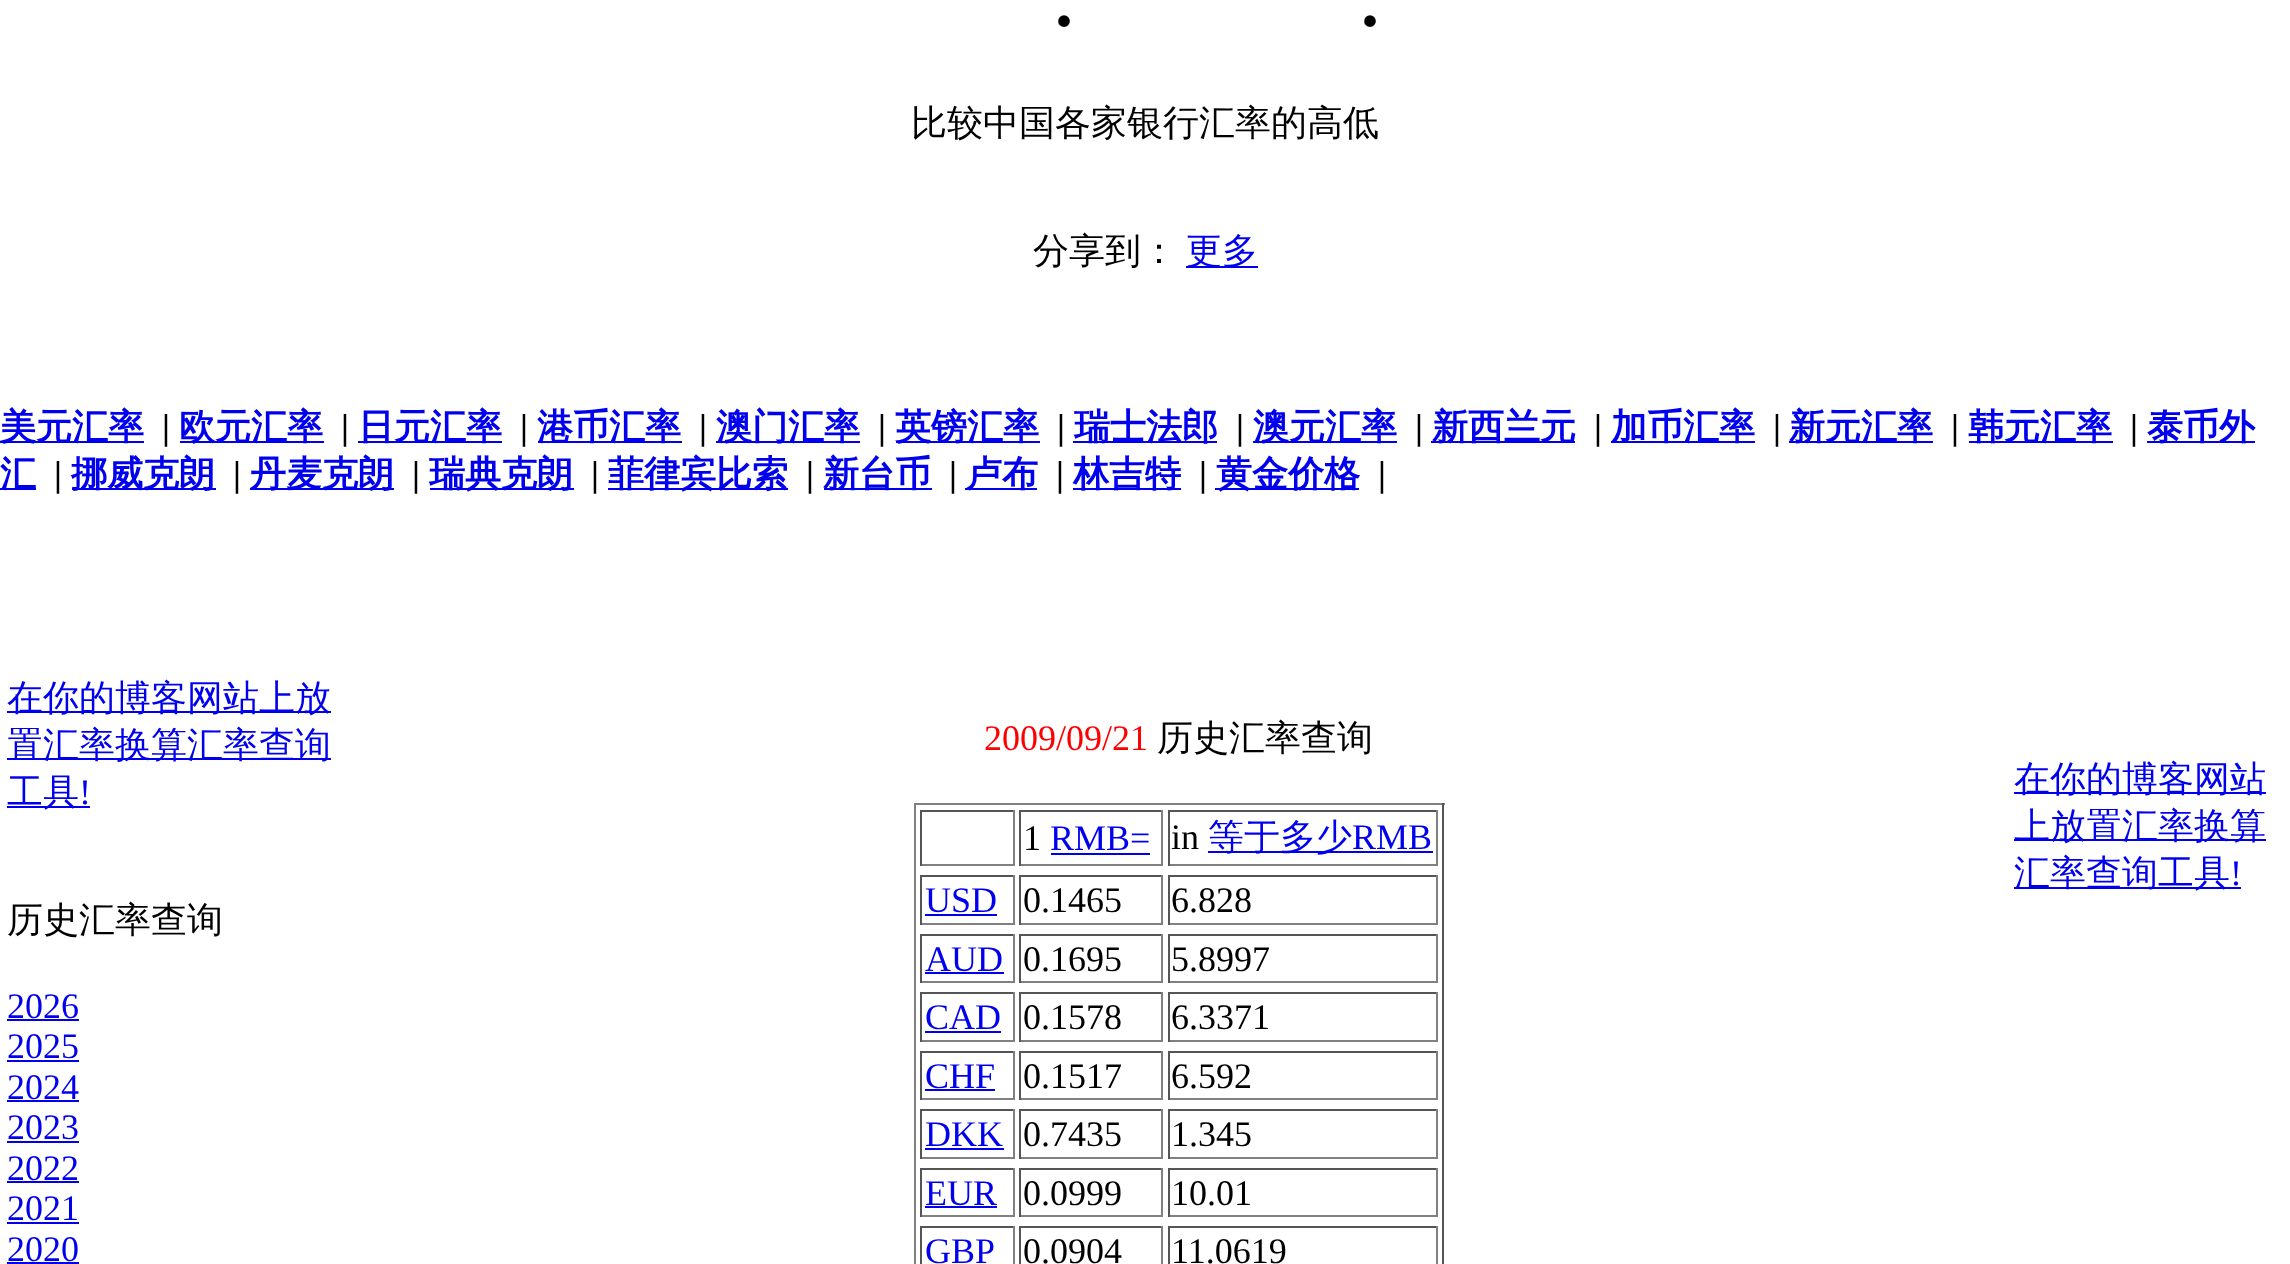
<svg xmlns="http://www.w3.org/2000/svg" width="2290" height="1264">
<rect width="100%" height="100%" fill="#fff"/>
<text x="1055" y="26" style="font-family:Liberation Serif;font-size:72px;font-weight:bold;fill:#000">.</text>
<text x="1361" y="26" style="font-family:Liberation Serif;font-size:72px;font-weight:bold;fill:#000">.</text>
<text x="911" y="135" style="font-family:WenQuanYi Zen Hei;font-size:36px;font-weight:500;fill:#000">比较中国各家银行汇率的高低</text>
<text x="1033" y="263" style="font-family:WenQuanYi Zen Hei;font-size:36px;font-weight:500;fill:#000">分享到：</text>
<rect x="1186" y="266" width="72" height="2" fill="#00e"/>
<text x="1186" y="263" style="font-family:WenQuanYi Zen Hei;font-size:36px;font-weight:500;fill:#00e">更多</text>
<rect y="441" width="144" height="2" fill="#00e"/>
<text x="0" y="439" style="font-family:WenQuanYi Zen Hei;font-size:36px;font-weight:bold;fill:#00e">美元汇率</text>
<text x="162" y="439" style="font-family:Liberation Serif;font-size:36px;font-weight:bold;fill:#000">|</text>
<rect x="180" y="441" width="144" height="2" fill="#00e"/>
<text x="179" y="439" style="font-family:WenQuanYi Zen Hei;font-size:36px;font-weight:bold;fill:#00e">欧元汇率</text>
<text x="341" y="439" style="font-family:Liberation Serif;font-size:36px;font-weight:bold;fill:#000">|</text>
<rect x="358" y="441" width="144" height="2" fill="#00e"/>
<text x="358" y="439" style="font-family:WenQuanYi Zen Hei;font-size:36px;font-weight:bold;fill:#00e">日元汇率</text>
<text x="520" y="439" style="font-family:Liberation Serif;font-size:36px;font-weight:bold;fill:#000">|</text>
<rect x="538" y="441" width="144" height="2" fill="#00e"/>
<text x="537" y="439" style="font-family:WenQuanYi Zen Hei;font-size:36px;font-weight:bold;fill:#00e">港币汇率</text>
<text x="699" y="439" style="font-family:Liberation Serif;font-size:36px;font-weight:bold;fill:#000">|</text>
<rect x="716" y="441" width="144" height="2" fill="#00e"/>
<text x="716" y="439" style="font-family:WenQuanYi Zen Hei;font-size:36px;font-weight:bold;fill:#00e">澳门汇率</text>
<text x="878" y="439" style="font-family:Liberation Serif;font-size:36px;font-weight:bold;fill:#000">|</text>
<rect x="896" y="441" width="144" height="2" fill="#00e"/>
<text x="895" y="439" style="font-family:WenQuanYi Zen Hei;font-size:36px;font-weight:bold;fill:#00e">英镑汇率</text>
<text x="1057" y="439" style="font-family:Liberation Serif;font-size:36px;font-weight:bold;fill:#000">|</text>
<rect x="1073" y="441" width="144" height="2" fill="#00e"/>
<text x="1074" y="439" style="font-family:WenQuanYi Zen Hei;font-size:36px;font-weight:bold;fill:#00e">瑞士法郎</text>
<text x="1236" y="439" style="font-family:Liberation Serif;font-size:36px;font-weight:bold;fill:#000">|</text>
<rect x="1253" y="441" width="144" height="2" fill="#00e"/>
<text x="1253" y="439" style="font-family:WenQuanYi Zen Hei;font-size:36px;font-weight:bold;fill:#00e">澳元汇率</text>
<text x="1415" y="439" style="font-family:Liberation Serif;font-size:36px;font-weight:bold;fill:#000">|</text>
<rect x="1431" y="441" width="144" height="2" fill="#00e"/>
<text x="1432" y="439" style="font-family:WenQuanYi Zen Hei;font-size:36px;font-weight:bold;fill:#00e">新西兰元</text>
<text x="1594" y="439" style="font-family:Liberation Serif;font-size:36px;font-weight:bold;fill:#000">|</text>
<rect x="1611" y="441" width="144" height="2" fill="#00e"/>
<text x="1611" y="439" style="font-family:WenQuanYi Zen Hei;font-size:36px;font-weight:bold;fill:#00e">加币汇率</text>
<text x="1773" y="439" style="font-family:Liberation Serif;font-size:36px;font-weight:bold;fill:#000">|</text>
<rect x="1789" y="441" width="144" height="2" fill="#00e"/>
<text x="1789" y="439" style="font-family:WenQuanYi Zen Hei;font-size:36px;font-weight:bold;fill:#00e">新元汇率</text>
<text x="1951" y="439" style="font-family:Liberation Serif;font-size:36px;font-weight:bold;fill:#000">|</text>
<rect x="1969" y="441" width="144" height="2" fill="#00e"/>
<text x="1968" y="439" style="font-family:WenQuanYi Zen Hei;font-size:36px;font-weight:bold;fill:#00e">韩元汇率</text>
<text x="2130" y="439" style="font-family:Liberation Serif;font-size:36px;font-weight:bold;fill:#000">|</text>
<rect x="2147" y="441" width="108" height="2" fill="#00e"/>
<text x="2147" y="439" style="font-family:WenQuanYi Zen Hei;font-size:36px;font-weight:bold;fill:#00e">泰币外</text>
<rect y="488" width="36" height="2" fill="#00e"/>
<text x="0" y="486" style="font-family:WenQuanYi Zen Hei;font-size:36px;font-weight:bold;fill:#00e">汇</text>
<text x="54" y="486" style="font-family:Liberation Serif;font-size:36px;font-weight:bold;fill:#000">|</text>
<rect x="72" y="488" width="144" height="2" fill="#00e"/>
<text x="71" y="486" style="font-family:WenQuanYi Zen Hei;font-size:36px;font-weight:bold;fill:#00e">挪威克朗</text>
<text x="233" y="486" style="font-family:Liberation Serif;font-size:36px;font-weight:bold;fill:#000">|</text>
<rect x="250" y="488" width="144" height="2" fill="#00e"/>
<text x="250" y="486" style="font-family:WenQuanYi Zen Hei;font-size:36px;font-weight:bold;fill:#00e">丹麦克朗</text>
<text x="412" y="486" style="font-family:Liberation Serif;font-size:36px;font-weight:bold;fill:#000">|</text>
<rect x="430" y="488" width="144" height="2" fill="#00e"/>
<text x="429" y="486" style="font-family:WenQuanYi Zen Hei;font-size:36px;font-weight:bold;fill:#00e">瑞典克朗</text>
<text x="591" y="486" style="font-family:Liberation Serif;font-size:36px;font-weight:bold;fill:#000">|</text>
<rect x="608" y="488" width="180" height="2" fill="#00e"/>
<text x="608" y="486" style="font-family:WenQuanYi Zen Hei;font-size:36px;font-weight:bold;fill:#00e">菲律宾比索</text>
<text x="806" y="486" style="font-family:Liberation Serif;font-size:36px;font-weight:bold;fill:#000">|</text>
<rect x="824" y="488" width="108" height="2" fill="#00e"/>
<text x="823" y="486" style="font-family:WenQuanYi Zen Hei;font-size:36px;font-weight:bold;fill:#00e">新台币</text>
<text x="949" y="486" style="font-family:Liberation Serif;font-size:36px;font-weight:bold;fill:#000">|</text>
<rect x="965" y="488" width="72" height="2" fill="#00e"/>
<text x="966" y="486" style="font-family:WenQuanYi Zen Hei;font-size:36px;font-weight:bold;fill:#00e">卢布</text>
<text x="1056" y="486" style="font-family:Liberation Serif;font-size:36px;font-weight:bold;fill:#000">|</text>
<rect x="1073" y="488" width="108" height="2" fill="#00e"/>
<text x="1073" y="486" style="font-family:WenQuanYi Zen Hei;font-size:36px;font-weight:bold;fill:#00e">林吉特</text>
<text x="1199" y="486" style="font-family:Liberation Serif;font-size:36px;font-weight:bold;fill:#000">|</text>
<rect x="1215" y="488" width="144" height="2" fill="#00e"/>
<text x="1216" y="486" style="font-family:WenQuanYi Zen Hei;font-size:36px;font-weight:bold;fill:#00e">黄金价格</text>
<text x="1378" y="486" style="font-family:Liberation Serif;font-size:36px;font-weight:bold;fill:#000">|</text>
<rect x="7" y="711" width="324" height="2" fill="#00e"/>
<text x="7" y="710" style="font-family:WenQuanYi Zen Hei;font-size:36px;font-weight:500;fill:#00e">在你的博客网站上放</text>
<rect x="7" y="758" width="324" height="2" fill="#00e"/>
<text x="7" y="757" style="font-family:WenQuanYi Zen Hei;font-size:36px;font-weight:500;fill:#00e">置汇率换算汇率查询</text>
<rect x="7" y="806" width="83" height="2" fill="#00e"/>
<text x="7" y="804" style="font-family:WenQuanYi Zen Hei;font-size:36px;font-weight:500;fill:#00e">工具</text>
<text x="79" y="804" style="font-family:Liberation Serif;font-size:36px;fill:#00e">!</text>
<text x="7" y="932" style="font-family:WenQuanYi Zen Hei;font-size:36px;font-weight:500;fill:#000">历史汇率查询</text>
<text x="7" y="1018" style="font-family:Liberation Serif;font-size:36px;fill:#00e">2026</text>
<rect x="7" y="1019" width="72" height="2" fill="#00e"/>
<text x="7" y="1058" style="font-family:Liberation Serif;font-size:36px;fill:#00e">2025</text>
<rect x="7" y="1060" width="72" height="2" fill="#00e"/>
<text x="7" y="1099" style="font-family:Liberation Serif;font-size:36px;fill:#00e">2024</text>
<rect x="7" y="1100" width="72" height="2" fill="#00e"/>
<text x="7" y="1139" style="font-family:Liberation Serif;font-size:36px;fill:#00e">2023</text>
<rect x="7" y="1141" width="72" height="2" fill="#00e"/>
<text x="7" y="1180" style="font-family:Liberation Serif;font-size:36px;fill:#00e">2022</text>
<rect x="7" y="1181" width="72" height="2" fill="#00e"/>
<text x="7" y="1220" style="font-family:Liberation Serif;font-size:36px;fill:#00e">2021</text>
<rect x="7" y="1222" width="72" height="2" fill="#00e"/>
<text x="7" y="1261" style="font-family:Liberation Serif;font-size:36px;fill:#00e">2020</text>
<rect x="7" y="1262" width="72" height="2" fill="#00e"/>
<text x="984" y="750" style="font-family:Liberation Serif;font-size:36px;fill:#f00">2009/09/21</text>
<text x="1157" y="750" style="font-family:WenQuanYi Zen Hei;font-size:36px;font-weight:500;fill:#000">历史汇率查询</text>
<rect x="914" y="803" width="531" height="2" fill="#808080"/>
<rect x="1442" y="803" width="2" height="461" fill="#555"/>
<rect x="914" y="803" width="2" height="461" fill="#808080"/>
<rect x="920" y="810" width="95" height="2" fill="#555"/>
<rect x="1013" y="810" width="2" height="56" fill="#808080"/>
<rect x="920" y="864" width="95" height="2" fill="#808080"/>
<rect x="920" y="810" width="2" height="56" fill="#555"/>
<rect x="1019" y="810" width="144" height="2" fill="#555"/>
<rect x="1161" y="810" width="2" height="56" fill="#808080"/>
<rect x="1019" y="864" width="144" height="2" fill="#808080"/>
<rect x="1019" y="810" width="2" height="56" fill="#555"/>
<text x="1023" y="850" style="font-family:Liberation Serif;font-size:36px;fill:#000">1</text>
<text x="1050" y="850" style="font-family:Liberation Serif;font-size:36px;fill:#00e">RMB=</text>
<rect x="1051" y="853" width="99" height="2" fill="#00e"/>
<rect x="1168" y="810" width="270" height="2" fill="#555"/>
<rect x="1436" y="810" width="2" height="56" fill="#808080"/>
<rect x="1168" y="864" width="270" height="2" fill="#808080"/>
<rect x="1168" y="810" width="2" height="56" fill="#555"/>
<text x="1171" y="849" style="font-family:Liberation Serif;font-size:36px;fill:#000">in</text>
<rect x="1208" y="851" width="225" height="2" fill="#00e"/>
<text x="1208" y="849" style="font-family:WenQuanYi Zen Hei;font-size:36px;font-weight:500;fill:#00e">等于多少</text>
<text x="1352" y="849" style="font-family:Liberation Serif;font-size:36px;fill:#00e">RMB</text>
<rect x="920" y="875" width="95" height="2" fill="#555"/>
<rect x="1013" y="875" width="2" height="50" fill="#808080"/>
<rect x="920" y="923" width="95" height="2" fill="#808080"/>
<rect x="920" y="875" width="2" height="50" fill="#555"/>
<text x="925" y="912" style="font-family:Liberation Serif;font-size:36px;fill:#00e">USD</text>
<rect x="925" y="914" width="72" height="2" fill="#00e"/>
<rect x="1019" y="875" width="144" height="2" fill="#555"/>
<rect x="1161" y="875" width="2" height="50" fill="#808080"/>
<rect x="1019" y="923" width="144" height="2" fill="#808080"/>
<rect x="1019" y="875" width="2" height="50" fill="#555"/>
<text x="1023" y="912" style="font-family:Liberation Serif;font-size:36px;fill:#000">0.1465</text>
<rect x="1168" y="875" width="270" height="2" fill="#555"/>
<rect x="1436" y="875" width="2" height="50" fill="#808080"/>
<rect x="1168" y="923" width="270" height="2" fill="#808080"/>
<rect x="1168" y="875" width="2" height="50" fill="#555"/>
<text x="1171" y="912" style="font-family:Liberation Serif;font-size:36px;fill:#000">6.828</text>
<rect x="920" y="934" width="95" height="2" fill="#555"/>
<rect x="1013" y="934" width="2" height="49" fill="#808080"/>
<rect x="920" y="981" width="95" height="2" fill="#808080"/>
<rect x="920" y="934" width="2" height="49" fill="#555"/>
<text x="925" y="971" style="font-family:Liberation Serif;font-size:36px;fill:#00e">AUD</text>
<rect x="925" y="972" width="79" height="2" fill="#00e"/>
<rect x="1019" y="934" width="144" height="2" fill="#555"/>
<rect x="1161" y="934" width="2" height="49" fill="#808080"/>
<rect x="1019" y="981" width="144" height="2" fill="#808080"/>
<rect x="1019" y="934" width="2" height="49" fill="#555"/>
<text x="1023" y="971" style="font-family:Liberation Serif;font-size:36px;fill:#000">0.1695</text>
<rect x="1168" y="934" width="270" height="2" fill="#555"/>
<rect x="1436" y="934" width="2" height="49" fill="#808080"/>
<rect x="1168" y="981" width="270" height="2" fill="#808080"/>
<rect x="1168" y="934" width="2" height="49" fill="#555"/>
<text x="1171" y="971" style="font-family:Liberation Serif;font-size:36px;fill:#000">5.8997</text>
<rect x="920" y="992" width="95" height="2" fill="#555"/>
<rect x="1013" y="992" width="2" height="50" fill="#808080"/>
<rect x="920" y="1040" width="95" height="2" fill="#808080"/>
<rect x="920" y="992" width="2" height="50" fill="#555"/>
<text x="925" y="1029" style="font-family:Liberation Serif;font-size:36px;fill:#00e">CAD</text>
<rect x="925" y="1031" width="76" height="2" fill="#00e"/>
<rect x="1019" y="992" width="144" height="2" fill="#555"/>
<rect x="1161" y="992" width="2" height="50" fill="#808080"/>
<rect x="1019" y="1040" width="144" height="2" fill="#808080"/>
<rect x="1019" y="992" width="2" height="50" fill="#555"/>
<text x="1023" y="1029" style="font-family:Liberation Serif;font-size:36px;fill:#000">0.1578</text>
<rect x="1168" y="992" width="270" height="2" fill="#555"/>
<rect x="1436" y="992" width="2" height="50" fill="#808080"/>
<rect x="1168" y="1040" width="270" height="2" fill="#808080"/>
<rect x="1168" y="992" width="2" height="50" fill="#555"/>
<text x="1171" y="1029" style="font-family:Liberation Serif;font-size:36px;fill:#000">6.3371</text>
<rect x="920" y="1051" width="95" height="2" fill="#555"/>
<rect x="1013" y="1051" width="2" height="49" fill="#808080"/>
<rect x="920" y="1098" width="95" height="2" fill="#808080"/>
<rect x="920" y="1051" width="2" height="49" fill="#555"/>
<text x="925" y="1088" style="font-family:Liberation Serif;font-size:36px;fill:#00e">CHF</text>
<rect x="925" y="1089" width="70" height="2" fill="#00e"/>
<rect x="1019" y="1051" width="144" height="2" fill="#555"/>
<rect x="1161" y="1051" width="2" height="49" fill="#808080"/>
<rect x="1019" y="1098" width="144" height="2" fill="#808080"/>
<rect x="1019" y="1051" width="2" height="49" fill="#555"/>
<text x="1023" y="1088" style="font-family:Liberation Serif;font-size:36px;fill:#000">0.1517</text>
<rect x="1168" y="1051" width="270" height="2" fill="#555"/>
<rect x="1436" y="1051" width="2" height="49" fill="#808080"/>
<rect x="1168" y="1098" width="270" height="2" fill="#808080"/>
<rect x="1168" y="1051" width="2" height="49" fill="#555"/>
<text x="1171" y="1088" style="font-family:Liberation Serif;font-size:36px;fill:#000">6.592</text>
<rect x="920" y="1109" width="95" height="2" fill="#555"/>
<rect x="1013" y="1109" width="2" height="50" fill="#808080"/>
<rect x="920" y="1157" width="95" height="2" fill="#808080"/>
<rect x="920" y="1109" width="2" height="50" fill="#555"/>
<text x="925" y="1146" style="font-family:Liberation Serif;font-size:36px;fill:#00e">DKK</text>
<rect x="925" y="1148" width="79" height="2" fill="#00e"/>
<rect x="1019" y="1109" width="144" height="2" fill="#555"/>
<rect x="1161" y="1109" width="2" height="50" fill="#808080"/>
<rect x="1019" y="1157" width="144" height="2" fill="#808080"/>
<rect x="1019" y="1109" width="2" height="50" fill="#555"/>
<text x="1023" y="1146" style="font-family:Liberation Serif;font-size:36px;fill:#000">0.7435</text>
<rect x="1168" y="1109" width="270" height="2" fill="#555"/>
<rect x="1436" y="1109" width="2" height="50" fill="#808080"/>
<rect x="1168" y="1157" width="270" height="2" fill="#808080"/>
<rect x="1168" y="1109" width="2" height="50" fill="#555"/>
<text x="1171" y="1146" style="font-family:Liberation Serif;font-size:36px;fill:#000">1.345</text>
<rect x="920" y="1168" width="95" height="2" fill="#555"/>
<rect x="1013" y="1168" width="2" height="49" fill="#808080"/>
<rect x="920" y="1215" width="95" height="2" fill="#808080"/>
<rect x="920" y="1168" width="2" height="49" fill="#555"/>
<text x="925" y="1205" style="font-family:Liberation Serif;font-size:36px;fill:#00e">EUR</text>
<rect x="925" y="1206" width="72" height="2" fill="#00e"/>
<rect x="1019" y="1168" width="144" height="2" fill="#555"/>
<rect x="1161" y="1168" width="2" height="49" fill="#808080"/>
<rect x="1019" y="1215" width="144" height="2" fill="#808080"/>
<rect x="1019" y="1168" width="2" height="49" fill="#555"/>
<text x="1023" y="1205" style="font-family:Liberation Serif;font-size:36px;fill:#000">0.0999</text>
<rect x="1168" y="1168" width="270" height="2" fill="#555"/>
<rect x="1436" y="1168" width="2" height="49" fill="#808080"/>
<rect x="1168" y="1215" width="270" height="2" fill="#808080"/>
<rect x="1168" y="1168" width="2" height="49" fill="#555"/>
<text x="1171" y="1205" style="font-family:Liberation Serif;font-size:36px;fill:#000">10.01</text>
<rect x="920" y="1226" width="95" height="2" fill="#555"/>
<rect x="1013" y="1226" width="2" height="38" fill="#808080"/>
<rect x="920" y="1226" width="2" height="38" fill="#555"/>
<text x="925" y="1263" style="font-family:Liberation Serif;font-size:36px;fill:#00e">GBP</text>
<rect x="1019" y="1226" width="144" height="2" fill="#555"/>
<rect x="1161" y="1226" width="2" height="38" fill="#808080"/>
<rect x="1019" y="1226" width="2" height="38" fill="#555"/>
<text x="1023" y="1263" style="font-family:Liberation Serif;font-size:36px;fill:#000">0.0904</text>
<rect x="1168" y="1226" width="270" height="2" fill="#555"/>
<rect x="1436" y="1226" width="2" height="38" fill="#808080"/>
<rect x="1168" y="1226" width="2" height="38" fill="#555"/>
<text x="1171" y="1263" style="font-family:Liberation Serif;font-size:36px;fill:#000">11.0619</text>
<rect x="2014" y="792" width="252" height="2" fill="#00e"/>
<text x="2014" y="791" style="font-family:WenQuanYi Zen Hei;font-size:36px;font-weight:500;fill:#00e">在你的博客网站</text>
<rect x="2014" y="839" width="252" height="2" fill="#00e"/>
<text x="2014" y="838" style="font-family:WenQuanYi Zen Hei;font-size:36px;font-weight:500;fill:#00e">上放置汇率换算</text>
<rect x="2014" y="887" width="227" height="2" fill="#00e"/>
<text x="2014" y="885" style="font-family:WenQuanYi Zen Hei;font-size:36px;font-weight:500;fill:#00e">汇率查询工具</text>
<text x="2230" y="885" style="font-family:Liberation Serif;font-size:36px;fill:#00e">!</text>
</svg>
